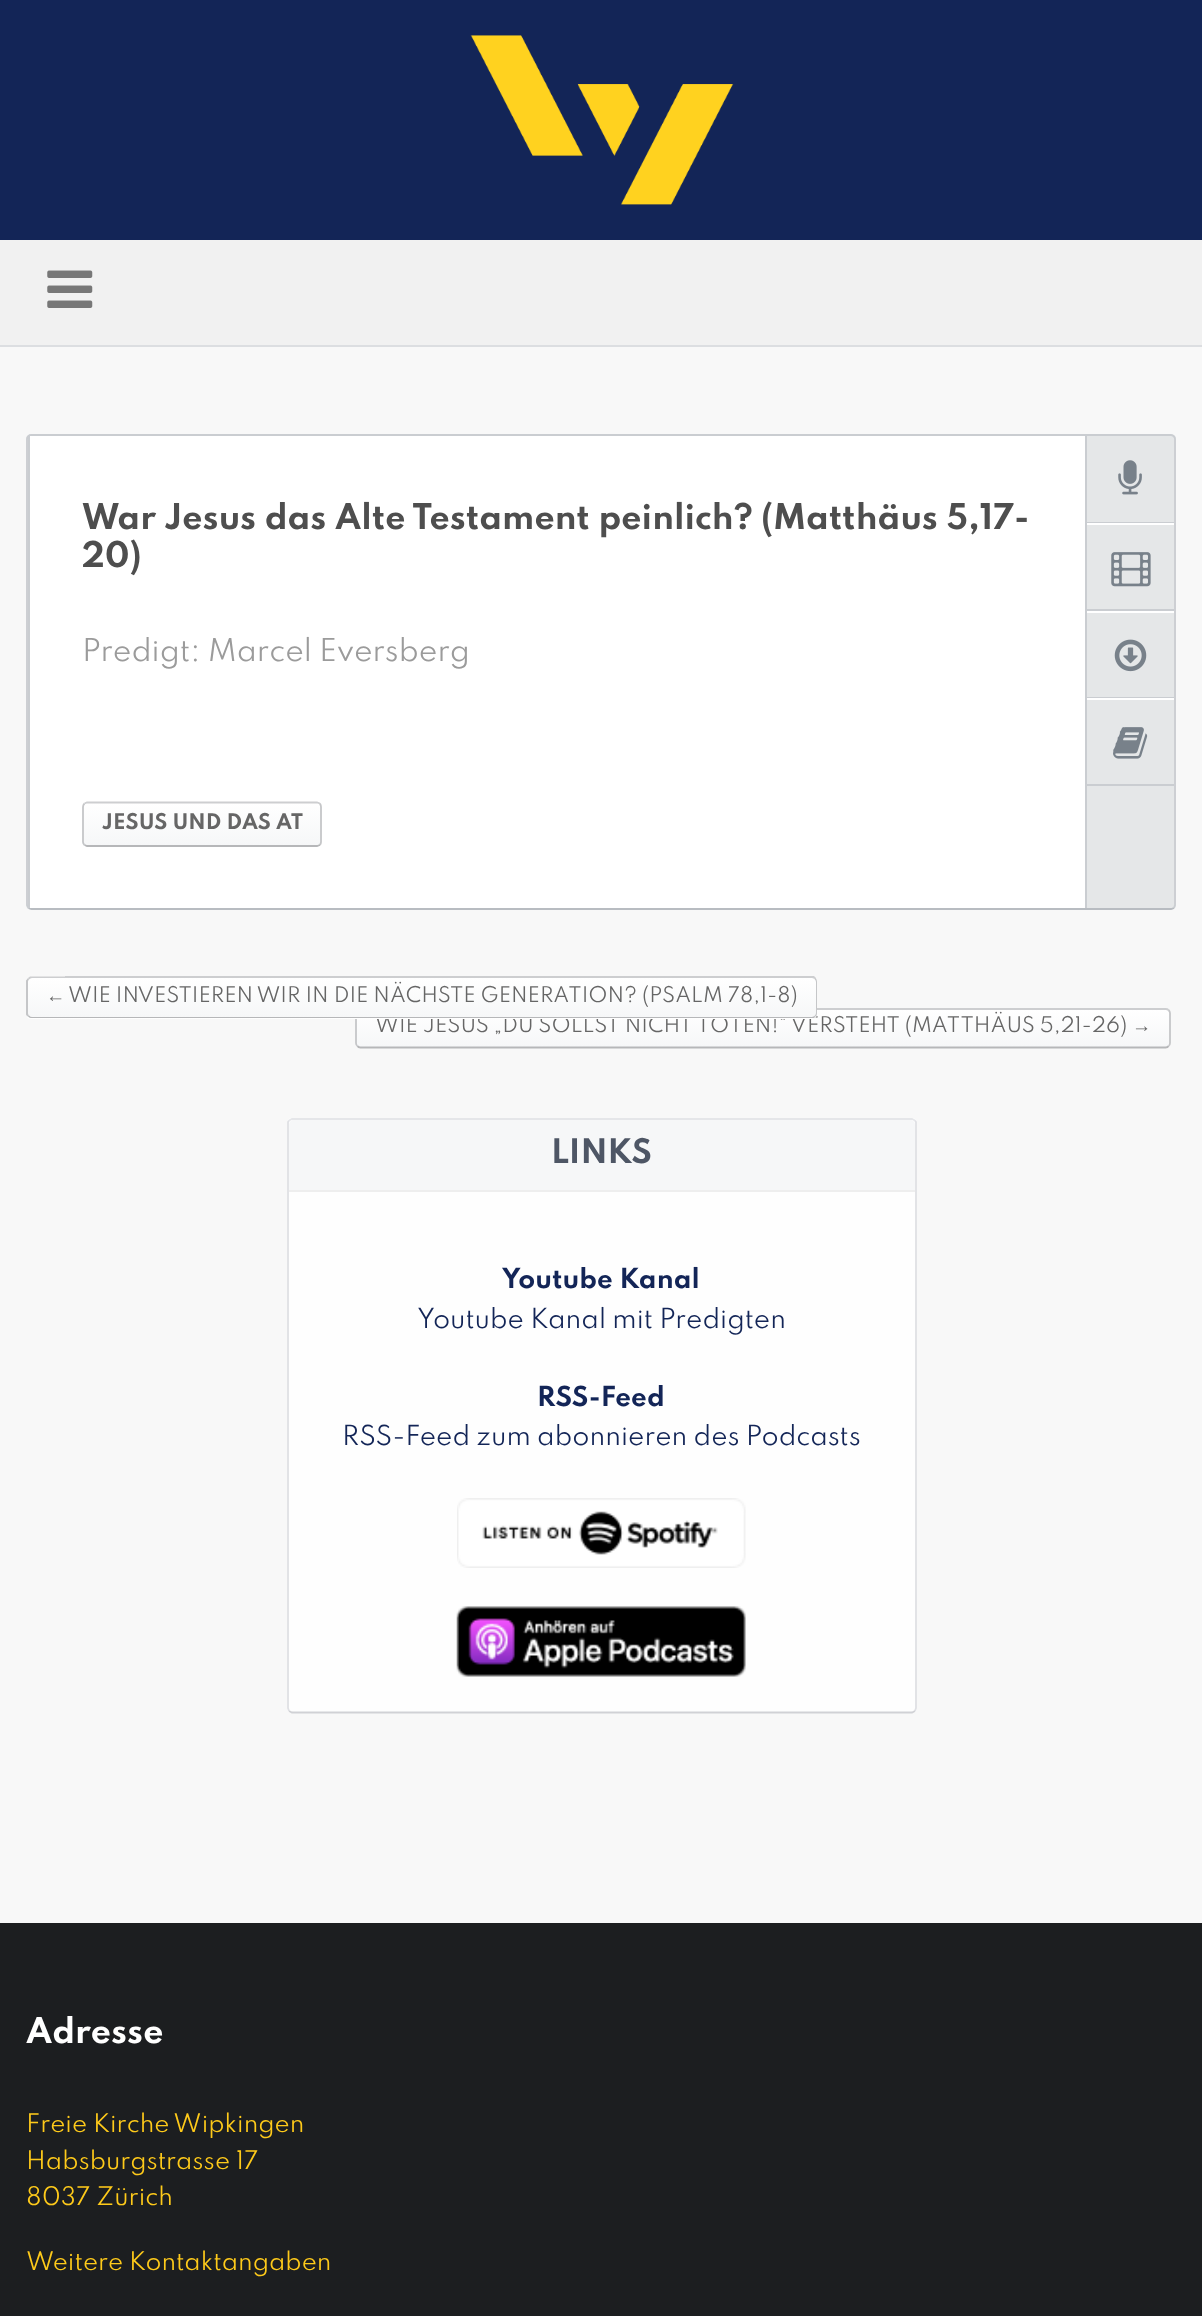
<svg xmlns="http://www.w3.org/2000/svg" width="1202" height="2316">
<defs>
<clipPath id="clip1"><rect x="82" y="802" width="240" height="45" rx="5"/></clipPath>
<linearGradient id="g1" gradientUnits="userSpaceOnUse" x1="202" y1="803" x2="202" y2="845"><stop offset="0" stop-color="#fff"/><stop offset="1" stop-color="#f6f7f8"/></linearGradient>
<clipPath id="clip2"><path d="M31 977h34v42h-34c-3 0-5-2-5-5v-32c0-3 2-5 5-5z"/></clipPath>
<linearGradient id="g2" gradientUnits="userSpaceOnUse" x1="46" y1="978" x2="46" y2="1017"><stop offset="0" stop-color="#fff"/><stop offset="1" stop-color="#f6f7f8"/></linearGradient>
<linearGradient id="g3" gradientUnits="userSpaceOnUse" x1="46" y1="1017" x2="46" y2="1055"><stop offset="0" stop-color="#fff"/><stop offset="1" stop-color="#f6f7f8"/></linearGradient>
<clipPath id="clip3"><rect x="355" y="1008" width="816" height="40" rx="5"/></clipPath>
<linearGradient id="g4" gradientUnits="userSpaceOnUse" x1="763" y1="1010" x2="763" y2="1047"><stop offset="0" stop-color="#fff"/><stop offset="1" stop-color="#f6f7f8"/></linearGradient>
<clipPath id="clip4"><path d="M65 977h747c3 0 5 2 5 5v32c0 3-2 5-5 5h-747z"/></clipPath>
<linearGradient id="g5" gradientUnits="userSpaceOnUse" x1="440" y1="978" x2="440" y2="1017"><stop offset="0" stop-color="#fff"/><stop offset="1" stop-color="#f6f7f8"/></linearGradient>
<linearGradient id="g6" gradientUnits="userSpaceOnUse" x1="440" y1="1017" x2="440" y2="1055"><stop offset="0" stop-color="#fff"/><stop offset="1" stop-color="#f6f7f8"/></linearGradient>
</defs>
<rect width="100%" height="100%" fill="#f8f8f8"/>
<rect width="1202" height="240" fill="#132557"/>
<image x="470" y="35" width="264" height="170" href="media/1.png"/>
<rect y="240" width="1202" height="105" fill="#f1f1f1"/>
<image x="47" y="270" width="46" height="38" href="media/2.png"/>
<rect y="345" width="1202" height="2" fill="#dcdee1"/>
<rect x="26" y="434" width="1150" height="476" rx="5" fill="#e5e7e8"/>
<path d="M1174 908l-3 1h-1139.5l-3-1" fill="none" stroke="#b8bcc1" stroke-width="1.8"/>
<path d="M28.5 908l-1.5-3v-466c0-2 2-4 4.5-4h1139.5c2 0 4 2 4 4v466l-1 3" fill="none" stroke="#cacdd1" stroke-width="1.8"/>
<rect x="30" y="436" width="1055" height="472" fill="#fff"/>
<rect x="1085" y="436" width="2" height="472" fill="#cacdd1"/>
<rect x="28" y="436" width="2" height="472" fill="#cacdd1"/>
<text x="82" y="529" style="font-family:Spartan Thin;font-size:31.5px;font-weight:bold;fill:#4e4e4e">War Jesus das Alte Testament peinlich? (Matthäus 5,17-</text>
<text x="82" y="567" style="font-family:Spartan Thin;font-size:31.5px;font-weight:bold;fill:#4e4e4e">20)</text>
<text x="82" y="661" style="font-family:Spartan Thin;font-size:28px;fill:#9b9b9b">Predigt: Marcel Eversberg</text>
<g clip-path="url(#clip1)">
<rect x="82" y="803" width="240" height="42" fill="url(#g1)"/>
</g>
<path d="M84.5 803.5l2.5-1h191.5h38.5l3 1" fill="none" stroke="#cdced0" stroke-width="1.8"/>
<path d="M320 803.5c.5 1 1 2 1 3.5v35c0 1-.5 2-1 3" fill="none" stroke="#c5c6c8" stroke-width="1.8"/>
<path d="M320 845l-3 1h-230l-2.5-1" fill="none" stroke="#b6b7b9" stroke-width="1.8"/>
<path d="M84.5 845c-1-1-1.5-2-1.5-3v-35c0-1.5 .5-2.5 1.5-3.5" fill="none" stroke="#c5c6c8" stroke-width="1.8"/>
<text x="102" y="829" style="font-family:Spartan Thin;font-size:19.25px;font-weight:bold;fill:#666">JESUS UND DAS AT</text>
<rect x="1087" y="522" width="87" height="1" fill="#cacdd1"/>
<image x="1118" y="460" width="24" height="35" href="media/3.png"/>
<rect x="1087" y="523" width="87" height="2" fill="#fff"/>
<rect x="1087" y="609" width="87" height="2" fill="#cacdd1"/>
<image x="1111" y="552" width="40" height="35" href="media/4.png"/>
<rect x="1087" y="611" width="87" height="2" fill="#fff"/>
<rect x="1087" y="697" width="87" height="1" fill="#cacdd1"/>
<image x="1114" y="639" width="33" height="33" href="media/5.png"/>
<rect x="1087" y="698" width="87" height="2" fill="#fff"/>
<rect x="1087" y="784" width="87" height="2" fill="#cacdd1"/>
<image x="1113" y="727" width="35" height="32" href="media/6.png"/>
<g clip-path="url(#clip2)">
<rect x="26" y="978" width="39" height="39" fill="url(#g2)"/>
</g>
<text x="46" y="1002" style="font-family:Liberation Sans;font-size:19.25px;fill:#666">←</text>
<g clip-path="url(#clip2)">
<rect x="26" y="1017" width="39" height="2" fill="url(#g3)"/>
</g>
<path d="M65 1018h-33c-1.5 0-3-.5-4-1.5l1-1c1 1 2 1.5 3 1.5h33z" fill="#b6b7b9"/>
<path d="M32 978c-1 0-2 .5-3 1.5l-1-1.5l2-1.5h35v1.5z" fill="#cdced0"/>
<path d="M26 980.5l2-2.5l1 1.5c-.5 .5-1 1.5-1 2.5v31c0 1 .5 2 1 2.5l-1 1c-1-.5-1.5-1-2-2z" fill="#c5c6c8"/>
<g clip-path="url(#clip3)">
<rect x="355" y="1010" width="816" height="37" fill="url(#g4)"/>
</g>
<path d="M357.5 1010c.5-.5 2-1 3-1h805c1 0 2.5 .5 3 1" fill="none" stroke="#cdced0" stroke-width="1.8"/>
<path d="M1168.5 1010c1 1 1.5 2 1.5 3v30c0 1-.5 2.5-1.5 3" fill="none" stroke="#c5c6c8" stroke-width="1.8"/>
<path d="M1168.5 1046c-.5 1-2 1.5-3 1.5h-805c-1 0-2.5-.5-3-1.5" fill="none" stroke="#b6b7b9" stroke-width="1.8"/>
<path d="M357.5 1046c-1-.5-1.5-2-1.5-3v-30c0-1 .5-2 1.5-3" fill="none" stroke="#c5c6c8" stroke-width="1.8"/>
<text x="375" y="1032" style="font-family:Spartan Thin;font-size:19.25px;fill:#666">WIE JESUS „DU SOLLST NICHT TÖTEN!“ VERSTEHT (MATTHÄUS 5,21-26)</text>
<g clip-path="url(#clip4)">
<rect x="65" y="978" width="752" height="39" fill="url(#g5)"/>
<rect x="65" y="1017" width="752" height="2" fill="url(#g6)"/>
</g>
<path d="M65 978v-2h749l2 2l-1 1l-3-1z" fill="#cdced0"/>
<path d="M814.5 1016c1-1 1.5-2 1.5-3v-31c0-1-.5-2-1.5-3l1-1c1 1 1.5 2.5 1.5 4v31c0 1.5-.5 3-1.5 3.5z" fill="#c5c6c8"/>
<path d="M815 1017v-1l-3 1h-747v1h747c1 0 3 0 3-1z" fill="#b6b7b9"/>
<text x="68" y="1002" style="font-family:Spartan Thin;font-size:19.25px;fill:#666">WIE INVESTIEREN WIR IN DIE NÄCHSTE GENERATION? (PSALM 78,1-8)</text>
<text x="1132" y="1032" style="font-family:Liberation Sans;font-size:19.25px;fill:#666">→</text>
<rect x="287" y="1118" width="630" height="595" rx="5" fill="#fefefe"/>
<path d="M289 1120.5l3-1.5h620l3 1.5" fill="none" stroke="#e5e6e9" stroke-width="1.8"/>
<path d="M915 1120.5l1 1.5v196.5v389.5l-1 3" fill="none" stroke="#dfe0e4" stroke-width="1.8"/>
<path d="M915 1711l-3 1.5h-620l-3-1.5" fill="none" stroke="#d0d1d5" stroke-width="1.8"/>
<path d="M289 1711l-1-3v-586l1-1.5" fill="none" stroke="#dfe0e4" stroke-width="1.8"/>
<path d="M294 1120h616c3 0 5 2 5 5v67h-626v-67c0-3 2-5 5-5z" fill="#f6f7f8"/>
<rect x="289" y="1190" width="626" height="2" fill="#eee"/>
<text x="551" y="1163" style="font-family:Spartan Thin;font-size:30px;font-weight:bold;fill:#4e5665">LINKS</text>
<text x="502" y="1288" style="font-family:Spartan Thin;font-size:24.5px;font-weight:bold;fill:#132557">Youtube Kanal</text>
<text x="417" y="1328" style="font-family:Spartan Thin;font-size:24.5px;fill:#132557">Youtube Kanal mit Predigten</text>
<text x="537" y="1406" style="font-family:Spartan Thin;font-size:24.5px;font-weight:bold;fill:#132557">RSS-Feed</text>
<text x="342" y="1445" style="font-family:Spartan Thin;font-size:24.5px;fill:#132557">RSS-Feed zum abonnieren des Podcasts</text>
<image x="457" y="1498" width="289" height="70" href="media/7.png"/>
<image x="456" y="1606" width="290" height="71" href="media/8.png"/>
<rect y="1923" width="1202" height="393" fill="#1c1e20"/>
<text x="26" y="2043" style="font-family:Spartan Thin;font-size:31.5px;font-weight:bold;fill:#fff">Adresse</text>
<text x="26" y="2132" style="font-family:Spartan Thin;font-size:22.75px;fill:#feca1a">Freie Kirche Wipkingen</text>
<text x="26" y="2169" style="font-family:Spartan Thin;font-size:22.75px;fill:#feca1a">Habsburgstrasse 17</text>
<text x="26" y="2205" style="font-family:Spartan Thin;font-size:22.75px;fill:#feca1a">8037 Zürich</text>
<text x="26" y="2270" style="font-family:Spartan Thin;font-size:22.75px;fill:#feca1a">Weitere Kontaktangaben</text>
</svg>
